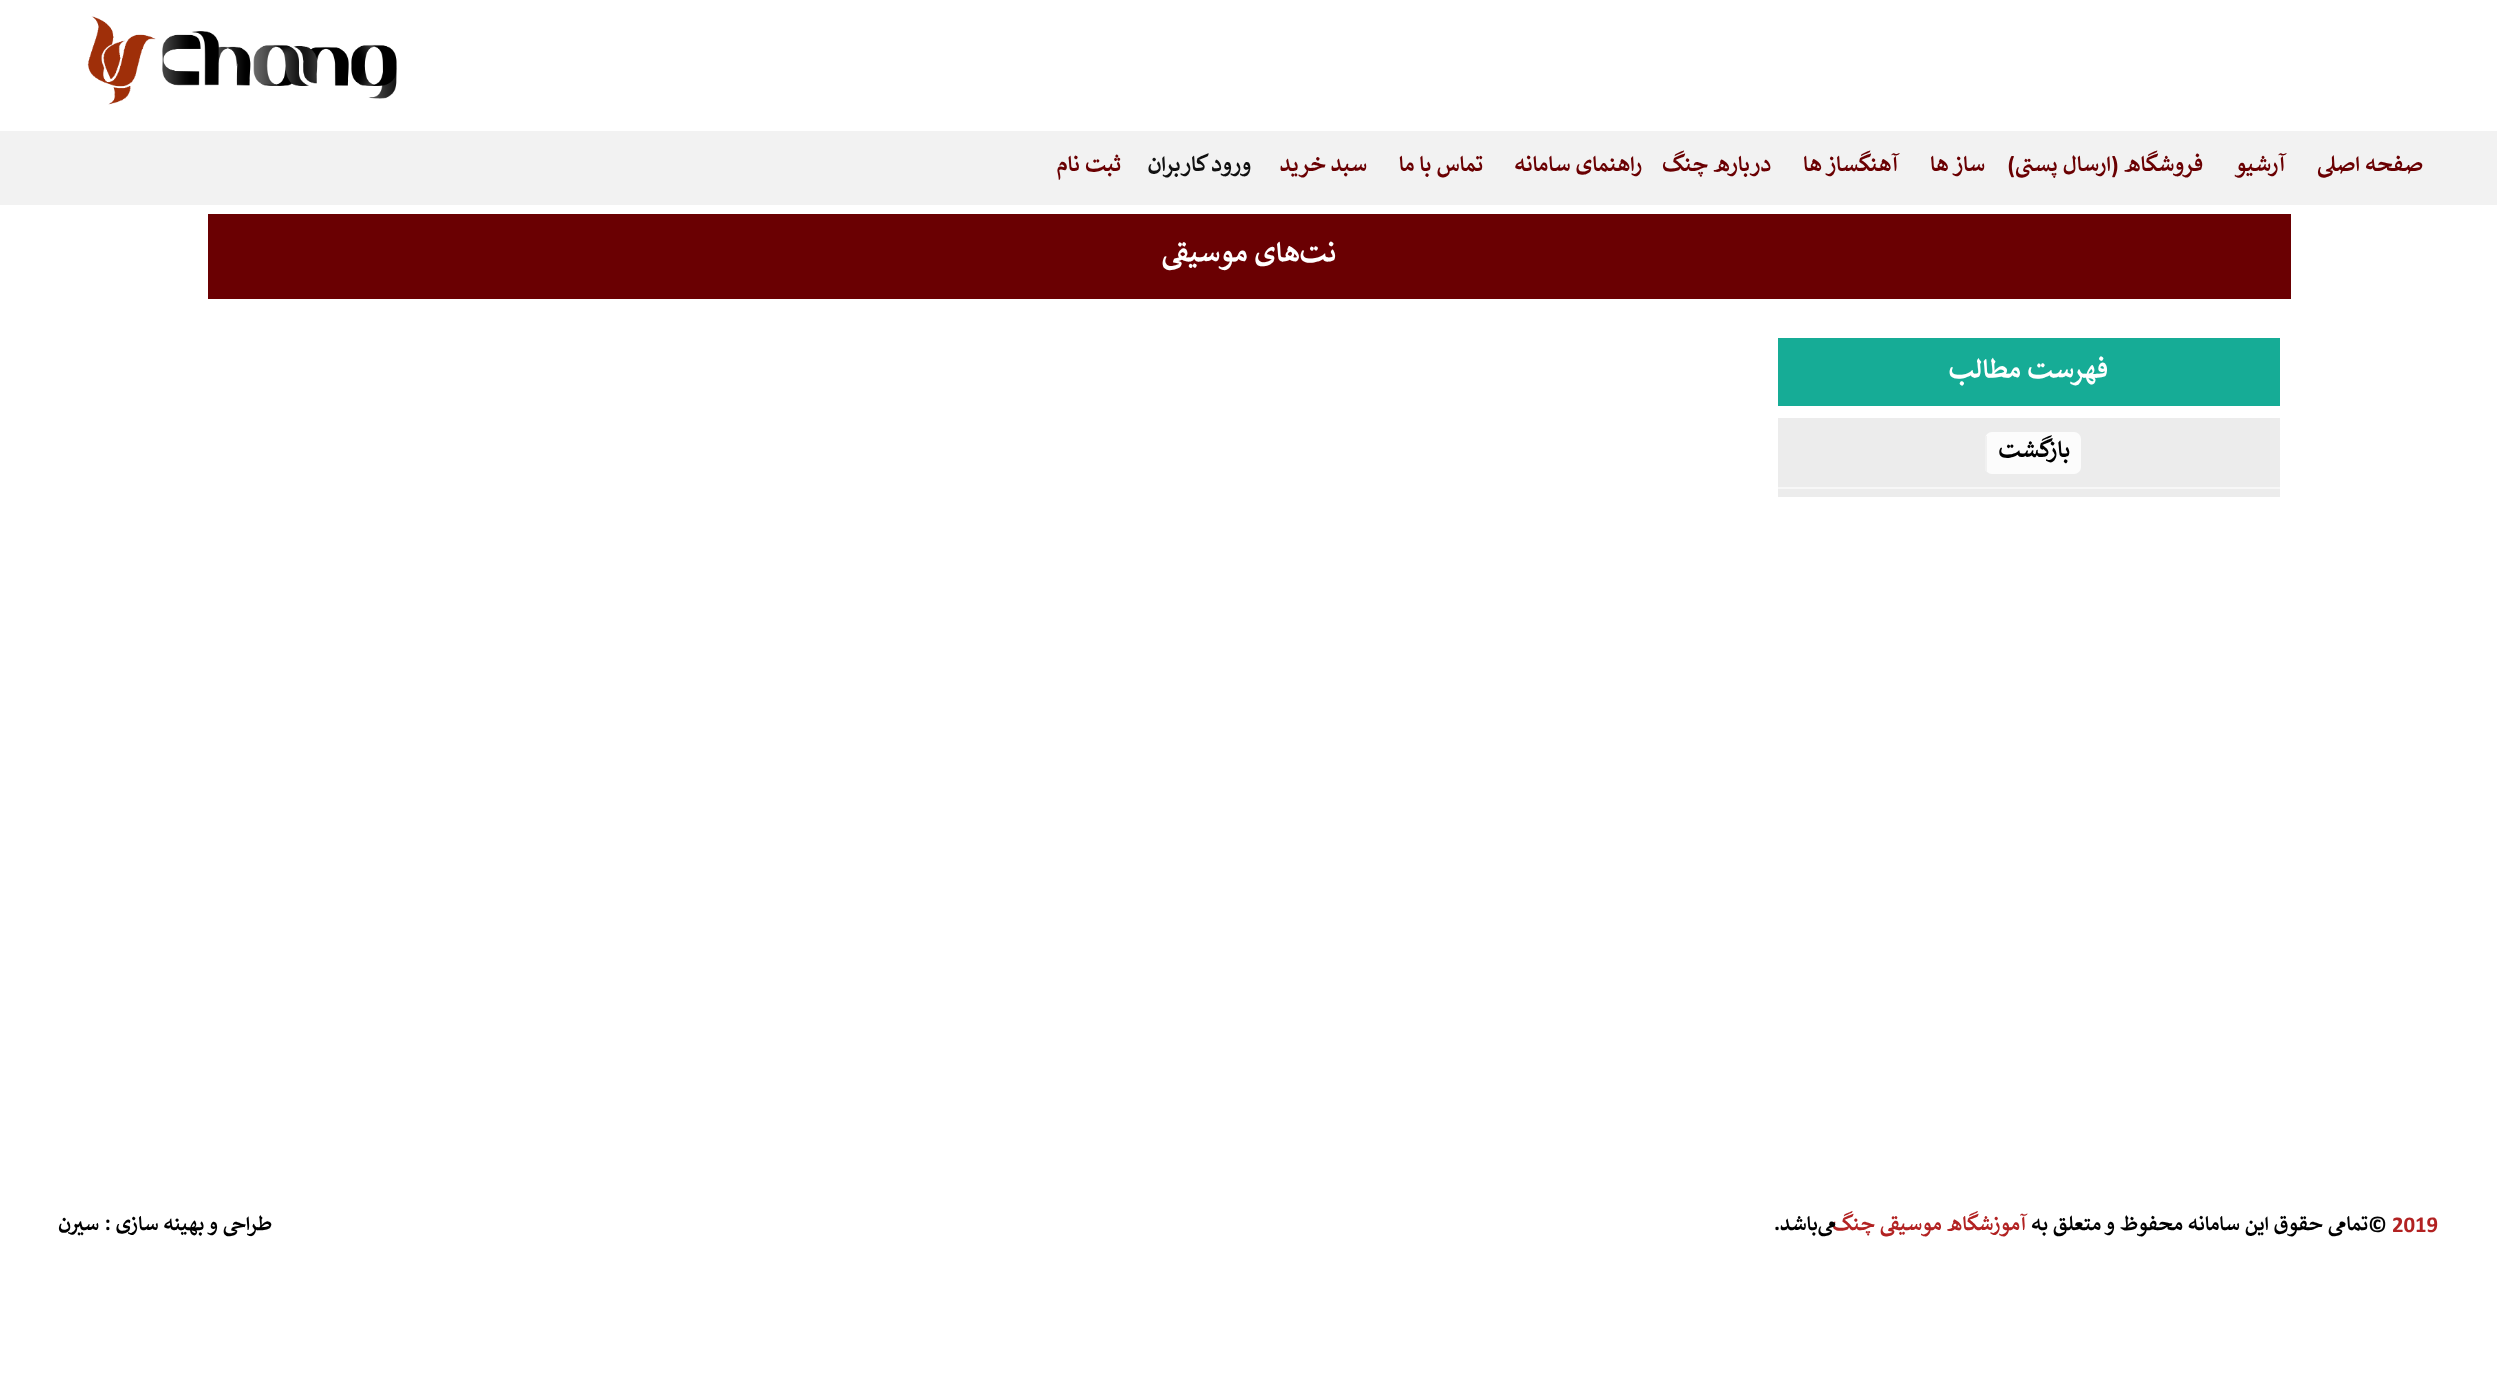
<svg xmlns="http://www.w3.org/2000/svg" width="2497" height="1378">
<rect width="100%" height="100%" fill="#fff"/>
<image x="87" y="16" width="310" height="89" href="media/1.png"/>
<rect y="131" width="2497" height="74" fill="#f2f2f2"/>
<text x="2423" y="173" style="font-family:Calibri;font-size:24.5px;font-weight:bold;direction:rtl;fill:#6a0002">صفحه اصلی</text>
<text x="2286" y="173" style="font-family:Calibri;font-size:24.5px;font-weight:bold;direction:rtl;fill:#6a0002">آرشیو</text>
<text x="2203" y="173" style="font-family:Calibri;font-size:24.5px;font-weight:bold;direction:rtl;fill:#6a0002">فروشگاه (ارسال پستی)</text>
<text x="1985" y="173" style="font-family:Calibri;font-size:24.5px;font-weight:bold;direction:rtl;fill:#6a0002">ساز ها</text>
<text x="1899" y="173" style="font-family:Calibri;font-size:24.5px;font-weight:bold;direction:rtl;fill:#6a0002">آهنگساز ها</text>
<text x="1771" y="173" style="font-family:Calibri;font-size:24.5px;font-weight:bold;direction:rtl;fill:#6a0002">درباره چنگ</text>
<text x="1642" y="173" style="font-family:Calibri;font-size:24.5px;font-weight:bold;direction:rtl;fill:#6a0002">راهنمای سامانه</text>
<text x="1483" y="173" style="font-family:Calibri;font-size:24.5px;font-weight:bold;direction:rtl;fill:#6a0002">تماس با ما</text>
<text x="1367" y="173" style="font-family:Calibri;font-size:24.5px;font-weight:bold;direction:rtl;fill:#6a0002">سبد خرید</text>
<text x="1251" y="173" style="font-family:Calibri;font-size:24.5px;font-weight:bold;direction:rtl;fill:#111">ورود کاربران</text>
<text x="1121" y="173" style="font-family:Calibri;font-size:24.5px;font-weight:bold;direction:rtl;fill:#6a0002">ثبت نام</text>
<rect x="208" y="214" width="2083" height="85" fill="#6a0002"/>
<text x="1336" y="264" style="font-family:Calibri;font-size:31.5px;font-weight:bold;direction:rtl;fill:#fff">نت‌های موسیقی</text>
<rect x="1778" y="338" width="502" height="68" fill="#16ac96"/>
<text x="2108" y="380" style="font-family:Calibri;font-size:29.75px;font-weight:bold;direction:rtl;fill:#fff">فهرست مطالب</text>
<rect x="1778" y="418" width="502" height="79" fill="#ececec"/>
<rect x="1778" y="487" width="502" height="2" fill="#f7f7f7"/>
<rect x="1985" y="432" width="96" height="42" rx="7" fill="#fcfcfc"/>
<rect x="1985" y="436" width="2" height="35" fill="#f1f1f1"/>
<text x="2070" y="459" style="font-family:Calibri;font-size:26px;font-weight:bold;direction:rtl;fill:#000">بازگشت</text>
<text x="2392" y="1232" style="font-family:Calibri;font-size:22.75px;font-weight:bold;fill:#b22222">2019</text>
<text x="2387" y="1232" style="font-family:Calibri;font-size:22.75px;font-weight:bold;direction:rtl;fill:#000">©تمامی حقوق این سامانه محفوظ و متعلق به</text>
<text x="2027" y="1232" style="font-family:Calibri;font-size:22.75px;font-weight:bold;direction:rtl;fill:#b22222">آموزشگاه موسیقی چنگ</text>
<text x="1836" y="1232" style="font-family:Calibri;font-size:22.75px;font-weight:bold;direction:rtl;fill:#000">می‌باشد.</text>
<text x="272" y="1232" style="font-family:Calibri;font-size:22.75px;font-weight:bold;direction:rtl;fill:#000">طراحی و بهینه سازی :</text>
<text x="99" y="1232" style="font-family:Calibri;font-size:22.75px;font-weight:bold;direction:rtl;fill:#000">سیرن</text>
</svg>
